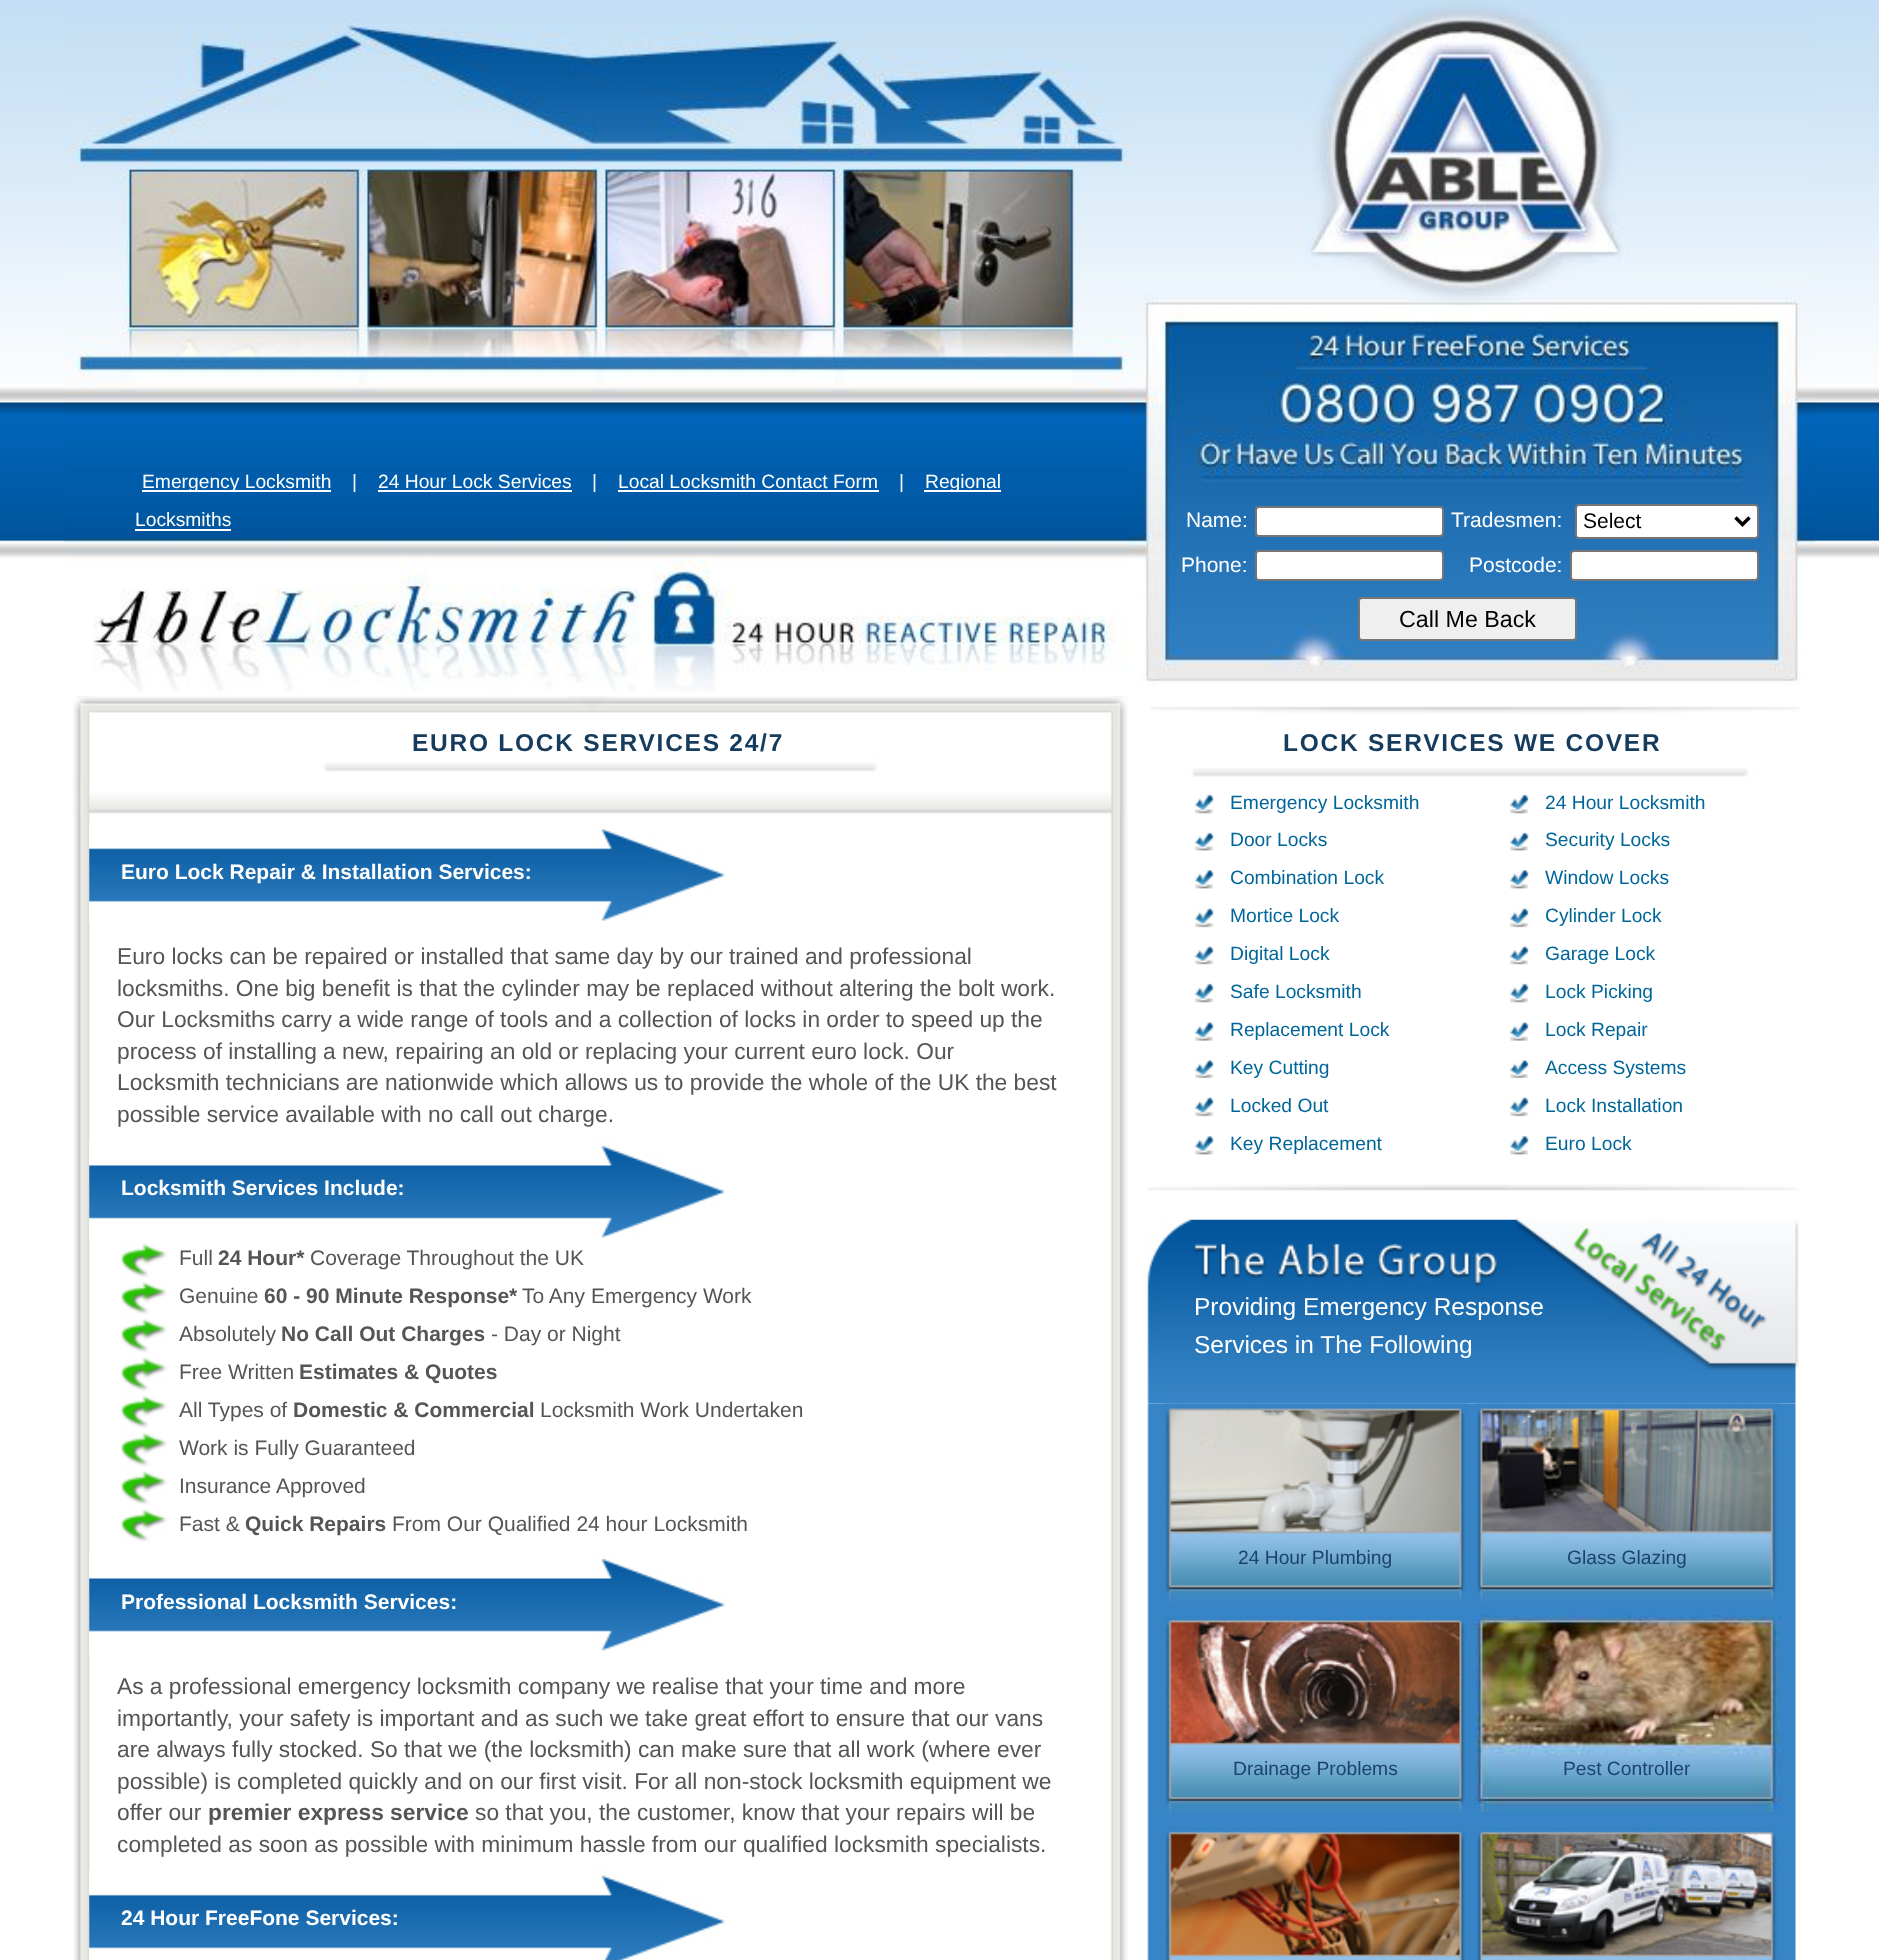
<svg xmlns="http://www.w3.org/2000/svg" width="1879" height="1960">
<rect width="100%" height="100%" fill="#fff"/>
<image x="0" y="0" width="1879" height="558" href="media/1.png"/>
<image x="64" y="0" width="1751" height="692" href="media/2.png"/>
<rect x="142" y="490" width="189" height="2" fill="#fff"/>
<text x="142" y="488" style="font-family:Liberation Sans;font-size:19.25px;fill:#fff">Emergency Locksmith</text>
<text x="352" y="488" style="font-family:Liberation Sans;font-size:19.25px;fill:#fff">|</text>
<text x="378" y="488" style="font-family:Liberation Sans;font-size:19.25px;fill:#fff">24 Hour Lock Services</text>
<rect x="378" y="490" width="194" height="2" fill="#fff"/>
<text x="592" y="488" style="font-family:Liberation Sans;font-size:19.25px;fill:#fff">|</text>
<text x="618" y="488" style="font-family:Liberation Sans;font-size:19.25px;fill:#fff">Local Locksmith Contact Form</text>
<rect x="618" y="490" width="261" height="2" fill="#fff"/>
<text x="899" y="488" style="font-family:Liberation Sans;font-size:19.25px;fill:#fff">|</text>
<rect x="924" y="490" width="77" height="2" fill="#fff"/>
<text x="925" y="488" style="font-family:Liberation Sans;font-size:19.25px;fill:#fff">Regional</text>
<text x="135" y="526" style="font-family:Liberation Sans;font-size:19.25px;fill:#fff">Locksmiths</text>
<rect x="135" y="529" width="96" height="2" fill="#fff"/>
<text x="1186" y="527" style="font-family:Liberation Sans;font-size:21px;fill:#fff">Name:</text>
<rect x="1256" y="507" width="187" height="29" rx="3" fill="#fff" stroke="#767676" stroke-width="2"/>
<text x="1451" y="527" style="font-family:Liberation Sans;font-size:21px;fill:#fff">Tradesmen:</text>
<rect x="1576" y="505" width="182" height="33" rx="3" fill="#fff" stroke="#767676" stroke-width="2"/>
<path d="M1735.5 517.5l7 7l7-7" fill="none" stroke="#000" stroke-width="3.5"/>
<text x="1583" y="528" style="font-family:Liberation Sans;font-size:21px;fill:#000">Select</text>
<text x="1181" y="572" style="font-family:Liberation Sans;font-size:21px;fill:#fff">Phone:</text>
<rect x="1256" y="551" width="187" height="29" rx="3" fill="#fff" stroke="#767676" stroke-width="2"/>
<text x="1469" y="572" style="font-family:Liberation Sans;font-size:21px;fill:#fff">Postcode:</text>
<rect x="1571" y="551" width="187" height="29" rx="3" fill="#fff" stroke="#767676" stroke-width="2"/>
<rect x="1359" y="598" width="217" height="42" rx="3" fill="#efefef" stroke="#767676" stroke-width="2"/>
<text x="1399" y="627" style="font-family:Liberation Sans;font-size:23.25px;fill:#000">Call Me Back</text>
<image x="73" y="696" width="1055" height="1264" href="media/3.png"/>
<image x="73" y="696" width="1054" height="118" href="media/4.png"/>
<text x="412" y="751" style="font-family:Liberation Sans;font-size:24.5px;font-weight:bold;letter-spacing:1.75px;fill:#153b5d">EURO LOCK SERVICES 24/7</text>
<image x="89" y="822" width="636" height="102" href="media/5.png"/>
<text x="121" y="879" style="font-family:Liberation Sans;font-size:21px;font-weight:bold;fill:#fff">Euro Lock Repair &amp; Installation Services:</text>
<text x="117" y="964" style="font-family:Liberation Sans;font-size:22.75px;fill:#555">Euro locks can be repaired or installed that same day by our trained and professional</text>
<text x="117" y="996" style="font-family:Liberation Sans;font-size:22.75px;fill:#555">locksmiths. One big benefit is that the cylinder may be replaced without altering the bolt work.</text>
<text x="117" y="1027" style="font-family:Liberation Sans;font-size:22.75px;fill:#555">Our Locksmiths carry a wide range of tools and a collection of locks in order to speed up the</text>
<text x="117" y="1059" style="font-family:Liberation Sans;font-size:22.75px;fill:#555">process of installing a new, repairing an old or replacing your current euro lock. Our</text>
<text x="117" y="1090" style="font-family:Liberation Sans;font-size:22.75px;fill:#555">Locksmith technicians are nationwide which allows us to provide the whole of the UK the best</text>
<text x="117" y="1122" style="font-family:Liberation Sans;font-size:22.75px;fill:#555">possible service available with no call out charge.</text>
<image x="89" y="1139" width="636" height="102" href="media/6.png"/>
<text x="121" y="1195" style="font-family:Liberation Sans;font-size:21px;font-weight:bold;fill:#fff">Locksmith Services Include:</text>
<image x="120" y="1243" width="48" height="35" href="media/7.png"/>
<text x="179" y="1265" style="font-family:Liberation Sans;font-size:21px;fill:#555">Full</text>
<text x="218" y="1265" style="font-family:Liberation Sans;font-size:21px;font-weight:bold;fill:#555">24 Hour*</text>
<text x="310" y="1265" style="font-family:Liberation Sans;font-size:21px;fill:#555">Coverage Throughout the UK</text>
<image x="120" y="1281" width="47" height="34" href="media/8.png"/>
<text x="179" y="1303" style="font-family:Liberation Sans;font-size:21px;fill:#555">Genuine</text>
<text x="264" y="1303" style="font-family:Liberation Sans;font-size:21px;font-weight:bold;fill:#555">60 - 90 Minute Response*</text>
<text x="522" y="1303" style="font-family:Liberation Sans;font-size:21px;fill:#555">To Any Emergency Work</text>
<image x="120" y="1318" width="48" height="35" href="media/9.png"/>
<text x="179" y="1341" style="font-family:Liberation Sans;font-size:21px;fill:#555">Absolutely</text>
<text x="281" y="1341" style="font-family:Liberation Sans;font-size:21px;font-weight:bold;fill:#555">No Call Out Charges</text>
<text x="491" y="1341" style="font-family:Liberation Sans;font-size:21px;fill:#555">- Day or Night</text>
<image x="120" y="1357" width="48" height="35" href="media/10.png"/>
<text x="179" y="1379" style="font-family:Liberation Sans;font-size:21px;fill:#555">Free Written</text>
<text x="299" y="1379" style="font-family:Liberation Sans;font-size:21px;font-weight:bold;fill:#555">Estimates &amp; Quotes</text>
<image x="120" y="1395" width="48" height="33" href="media/11.png"/>
<text x="179" y="1417" style="font-family:Liberation Sans;font-size:21px;fill:#555">All Types of</text>
<text x="293" y="1417" style="font-family:Liberation Sans;font-size:21px;font-weight:bold;fill:#555">Domestic &amp; Commercial</text>
<text x="540" y="1417" style="font-family:Liberation Sans;font-size:21px;fill:#555">Locksmith Work Undertaken</text>
<image x="120" y="1432" width="48" height="35" href="media/7.png"/>
<text x="179" y="1455" style="font-family:Liberation Sans;font-size:21px;fill:#555">Work is Fully Guaranteed</text>
<image x="120" y="1470" width="48" height="35" href="media/12.png"/>
<text x="179" y="1493" style="font-family:Liberation Sans;font-size:21px;fill:#555">Insurance Approved</text>
<image x="120" y="1509" width="48" height="33" href="media/13.png"/>
<text x="179" y="1531" style="font-family:Liberation Sans;font-size:21px;fill:#555">Fast &amp;</text>
<text x="245" y="1531" style="font-family:Liberation Sans;font-size:21px;font-weight:bold;fill:#555">Quick Repairs</text>
<text x="392" y="1531" style="font-family:Liberation Sans;font-size:21px;fill:#555">From Our Qualified 24 hour Locksmith</text>
<image x="89" y="1552" width="636" height="102" href="media/6.png"/>
<text x="121" y="1609" style="font-family:Liberation Sans;font-size:21px;font-weight:bold;fill:#fff">Professional Locksmith Services:</text>
<text x="117" y="1694" style="font-family:Liberation Sans;font-size:22.75px;fill:#555">As a professional emergency locksmith company we realise that your time and more</text>
<text x="117" y="1726" style="font-family:Liberation Sans;font-size:22.75px;fill:#555">importantly, your safety is important and as such we take great effort to ensure that our vans</text>
<text x="117" y="1757" style="font-family:Liberation Sans;font-size:22.75px;fill:#555">are always fully stocked. So that we (the locksmith) can make sure that all work (where ever</text>
<text x="117" y="1789" style="font-family:Liberation Sans;font-size:22.75px;fill:#555">possible) is completed quickly and on our first visit. For all non-stock locksmith equipment we</text>
<text x="117" y="1820" style="font-family:Liberation Sans;font-size:22.75px;fill:#555">offer our</text>
<text x="208" y="1820" style="font-family:Liberation Sans;font-size:22.75px;font-weight:bold;fill:#555">premier express service</text>
<text x="475" y="1820" style="font-family:Liberation Sans;font-size:22.75px;fill:#555">so that you, the customer, know that your repairs will be</text>
<text x="117" y="1852" style="font-family:Liberation Sans;font-size:22.75px;fill:#555">completed as soon as possible with minimum hassle from our qualified locksmith specialists.</text>
<image x="89" y="1869" width="636" height="91" href="media/14.png"/>
<text x="121" y="1925" style="font-family:Liberation Sans;font-size:21px;font-weight:bold;fill:#fff">24 Hour FreeFone Services:</text>
<image x="1150" y="706" width="650" height="71" href="media/15.png"/>
<text x="1283" y="751" style="font-family:Liberation Sans;font-size:24.5px;font-weight:bold;letter-spacing:1.75px;fill:#153b5d">LOCK SERVICES WE COVER</text>
<image x="1194" y="794" width="20" height="20" href="media/16.png"/>
<text x="1230" y="809" style="font-family:Liberation Sans;font-size:19.25px;fill:#069">Emergency Locksmith</text>
<image x="1194" y="832" width="21" height="19" href="media/17.png"/>
<text x="1230" y="846" style="font-family:Liberation Sans;font-size:19.25px;fill:#069">Door Locks</text>
<image x="1194" y="870" width="20" height="19" href="media/18.png"/>
<text x="1230" y="884" style="font-family:Liberation Sans;font-size:19.25px;fill:#069">Combination Lock</text>
<image x="1194" y="908" width="21" height="20" href="media/19.png"/>
<text x="1230" y="922" style="font-family:Liberation Sans;font-size:19.25px;fill:#069">Mortice Lock</text>
<image x="1194" y="946" width="20" height="19" href="media/20.png"/>
<text x="1230" y="960" style="font-family:Liberation Sans;font-size:19.25px;fill:#069">Digital Lock</text>
<image x="1194" y="983" width="20" height="20" href="media/16.png"/>
<text x="1230" y="998" style="font-family:Liberation Sans;font-size:19.25px;fill:#069">Safe Locksmith</text>
<image x="1194" y="1022" width="20" height="19" href="media/21.png"/>
<text x="1230" y="1036" style="font-family:Liberation Sans;font-size:19.25px;fill:#069">Replacement Lock</text>
<image x="1194" y="1060" width="20" height="19" href="media/22.png"/>
<text x="1230" y="1074" style="font-family:Liberation Sans;font-size:19.25px;fill:#069">Key Cutting</text>
<image x="1194" y="1097" width="21" height="20" href="media/19.png"/>
<text x="1230" y="1112" style="font-family:Liberation Sans;font-size:19.25px;fill:#069">Locked Out</text>
<image x="1194" y="1136" width="20" height="19" href="media/18.png"/>
<text x="1230" y="1150" style="font-family:Liberation Sans;font-size:19.25px;fill:#069">Key Replacement</text>
<image x="1509" y="794" width="20" height="20" href="media/16.png"/>
<text x="1545" y="809" style="font-family:Liberation Sans;font-size:19.25px;fill:#069">24 Hour Locksmith</text>
<image x="1509" y="832" width="21" height="19" href="media/17.png"/>
<text x="1545" y="846" style="font-family:Liberation Sans;font-size:19.25px;fill:#069">Security Locks</text>
<image x="1509" y="870" width="20" height="19" href="media/18.png"/>
<text x="1545" y="884" style="font-family:Liberation Sans;font-size:19.25px;fill:#069">Window Locks</text>
<image x="1509" y="908" width="21" height="20" href="media/19.png"/>
<text x="1545" y="922" style="font-family:Liberation Sans;font-size:19.25px;fill:#069">Cylinder Lock</text>
<image x="1509" y="946" width="20" height="19" href="media/20.png"/>
<text x="1545" y="960" style="font-family:Liberation Sans;font-size:19.25px;fill:#069">Garage Lock</text>
<image x="1509" y="983" width="20" height="20" href="media/16.png"/>
<text x="1545" y="998" style="font-family:Liberation Sans;font-size:19.25px;fill:#069">Lock Picking</text>
<image x="1509" y="1022" width="20" height="19" href="media/21.png"/>
<text x="1545" y="1036" style="font-family:Liberation Sans;font-size:19.25px;fill:#069">Lock Repair</text>
<image x="1509" y="1060" width="20" height="19" href="media/22.png"/>
<text x="1545" y="1074" style="font-family:Liberation Sans;font-size:19.25px;fill:#069">Access Systems</text>
<image x="1509" y="1097" width="21" height="20" href="media/19.png"/>
<text x="1545" y="1112" style="font-family:Liberation Sans;font-size:19.25px;fill:#069">Lock Installation</text>
<image x="1509" y="1136" width="20" height="19" href="media/18.png"/>
<text x="1545" y="1150" style="font-family:Liberation Sans;font-size:19.25px;fill:#069">Euro Lock</text>
<image x="1147" y="1184" width="650" height="7" href="media/23.png"/>
<image x="1147" y="1219" width="652" height="185" href="media/24.png"/>
<text x="1194" y="1315" style="font-family:Liberation Sans;font-size:24.5px;fill:#fff">Providing Emergency Response</text>
<text x="1194" y="1353" style="font-family:Liberation Sans;font-size:24.5px;fill:#fff">Services in The Following</text>
<image x="1147" y="1403" width="649" height="557" href="media/25.png"/>
<image x="1163" y="1403" width="306" height="200" href="media/26.png"/>
<text x="1238" y="1564" style="font-family:Liberation Sans;font-size:19.25px;fill:#1c436f">24 Hour Plumbing</text>
<image x="1475" y="1403" width="305" height="200" href="media/27.png"/>
<text x="1567" y="1564" style="font-family:Liberation Sans;font-size:19.25px;fill:#1c436f">Glass Glazing</text>
<image x="1165" y="1615" width="303" height="200" href="media/28.png"/>
<text x="1233" y="1775" style="font-family:Liberation Sans;font-size:19.25px;fill:#1c436f">Drainage Problems</text>
<image x="1475" y="1615" width="305" height="198" href="media/29.png"/>
<text x="1563" y="1775" style="font-family:Liberation Sans;font-size:19.25px;fill:#1c436f">Pest Controller</text>
<image x="1165" y="1827" width="301" height="133" href="media/30.png"/>
<image x="1476" y="1827" width="304" height="133" href="media/31.png"/>
</svg>
